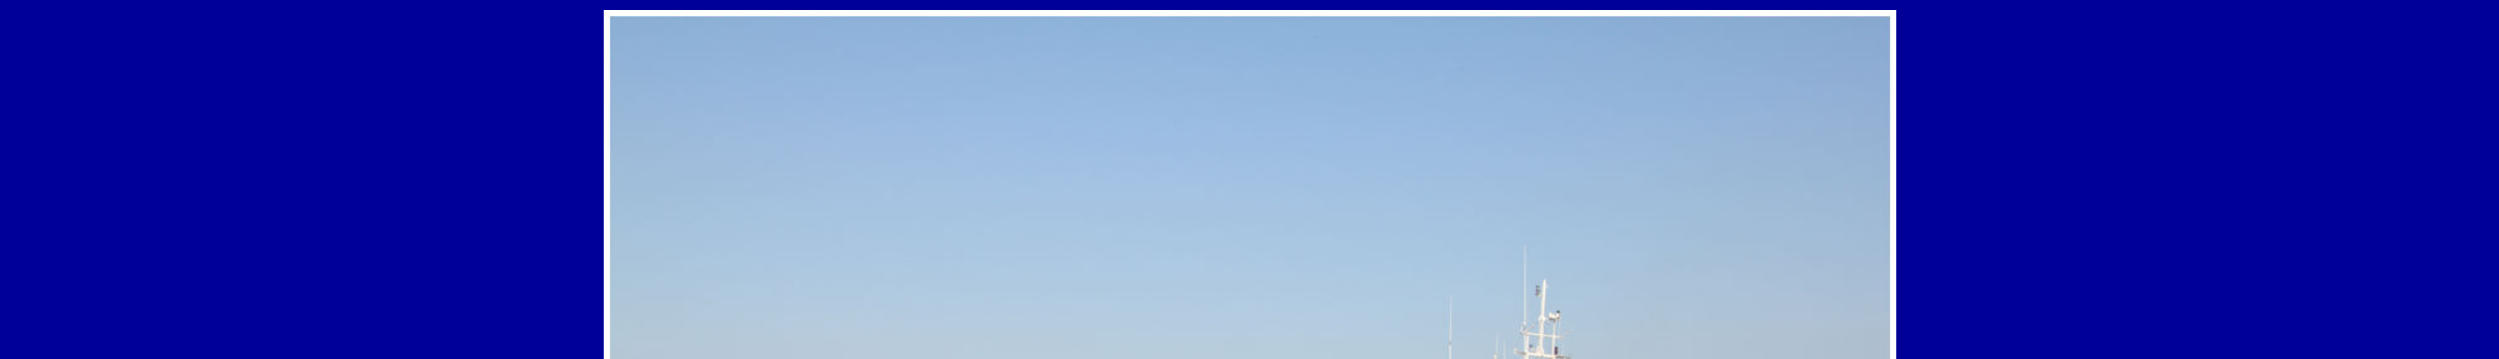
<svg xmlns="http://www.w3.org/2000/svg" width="2499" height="359">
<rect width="100%" height="100%" fill="#009"/>
<image x="603" y="10" width="1294" height="349" href="media/1.png"/>
</svg>
